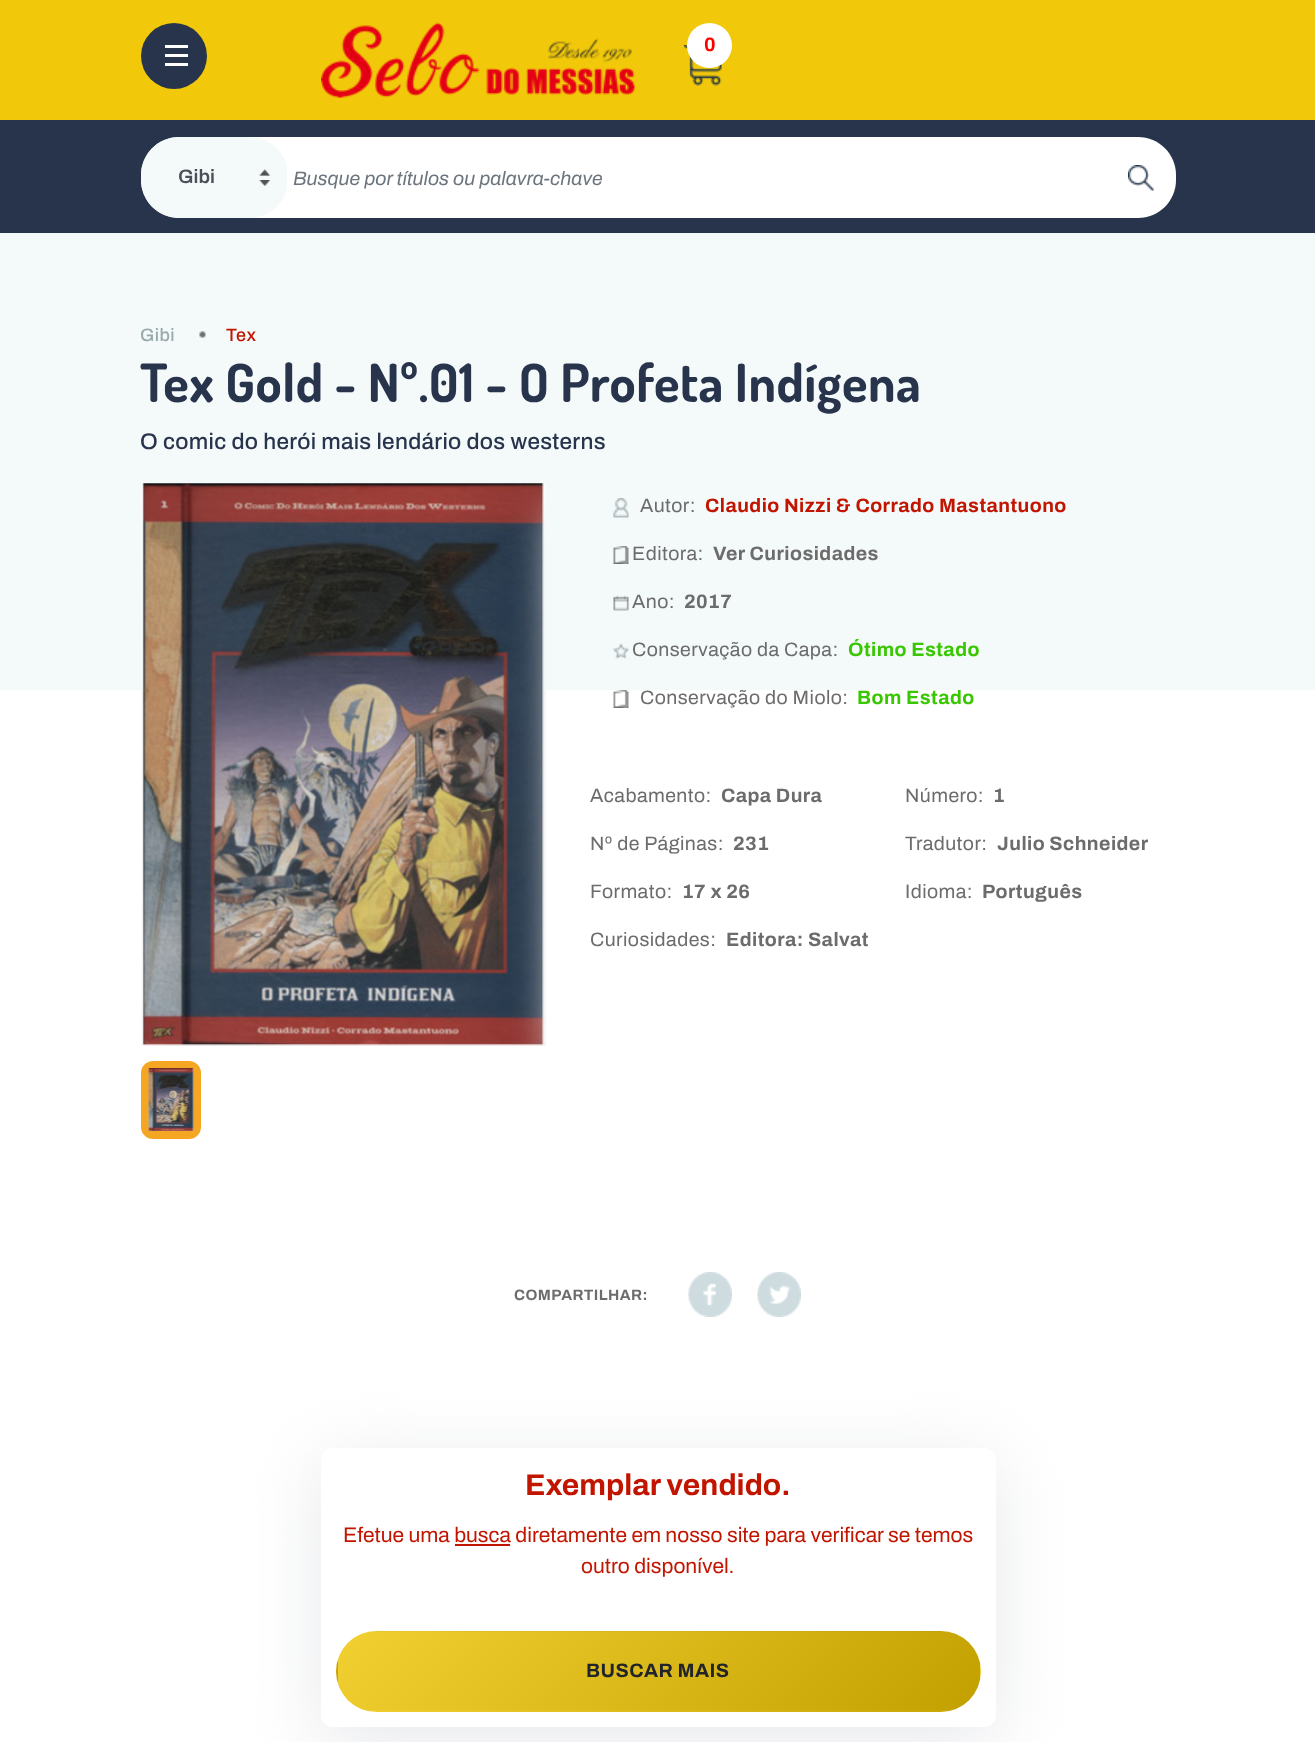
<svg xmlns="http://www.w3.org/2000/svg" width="1315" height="1742">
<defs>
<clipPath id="clip1"><rect x="179" y="164" width="67" height="28"/></clipPath>
<clipPath id="clip2"><rect x="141" y="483" width="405" height="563"/></clipPath>
<clipPath id="clip3"><rect x="336" y="1631" width="645" height="81" rx="40.5"/></clipPath>
<linearGradient id="g1" gradientUnits="userSpaceOnUse" x1="839" y1="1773" x2="479" y2="1413"><stop offset="0" stop-color="#c1a000"/><stop offset="1" stop-color="#f2d031"/></linearGradient>
<linearGradient id="g2" gradientUnits="userSpaceOnUse" x1="197" y1="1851" x2="-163" y2="1491"><stop offset="0" stop-color="#c1a000"/><stop offset="1" stop-color="#f2d031"/></linearGradient>
<linearGradient id="g3" gradientUnits="userSpaceOnUse" x1="839" y1="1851" x2="479" y2="1491"><stop offset="0" stop-color="#c1a000"/><stop offset="1" stop-color="#f2d031"/></linearGradient>
<linearGradient id="g4" gradientUnits="userSpaceOnUse" x1="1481" y1="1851" x2="1121" y2="1491"><stop offset="0" stop-color="#c1a000"/><stop offset="1" stop-color="#f2d031"/></linearGradient>
<linearGradient id="g5" gradientUnits="userSpaceOnUse" x1="839" y1="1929" x2="479" y2="1569"><stop offset="0" stop-color="#c1a000"/><stop offset="1" stop-color="#f2d031"/></linearGradient>
</defs>
<rect width="100%" height="100%" fill="#fff"/>
<rect width="1315" height="120" fill="#f1c90a"/>
<circle cx="174" cy="56" r="33" fill="#27344c"/>
<rect x="165" y="45" width="23" height="3" fill="#fff"/>
<rect x="165" y="54" width="23" height="3" fill="#fff"/>
<rect x="165" y="63" width="23" height="3" fill="#fff"/>
<image x="321" y="22" width="314" height="76" href="media/1.png"/>
<image x="684" y="45" width="38" height="41" href="media/2.png"/>
<circle cx="709.5" cy="45.5" r="22.5" fill="#fff"/>
<text x="704" y="51" style="font-family:Archivo;font-size:19.5px;font-weight:bold;letter-spacing:0.45px;fill:#f00">0</text>
<rect y="120" width="1315" height="113" fill="#27344c"/>
<path d="M179 137h109v81h-109c-21 0-38-17-38-38v-5c0-21 17-38 38-38z" fill="#fff"/>
<rect x="141" y="137" width="147" height="81" rx="38" fill="#f4f9fa"/>
<image x="259" y="169" width="11" height="17" href="media/3.png"/>
<g clip-path="url(#clip1)">
<text x="178" y="183" style="font-family:Archivo;font-size:19.5px;font-weight:600;fill:#495057">Gibi</text>
</g>
<rect x="287" y="137" width="840" height="81" fill="#fff"/>
<text x="293" y="185" style="font-family:Archivo;font-size:19.5px;font-style:italic;fill:#6c757d">Busque por títulos ou palavra-chave</text>
<path d="M1127 137h11c21 0 38 17 38 38v5c0 21-17 38-38 38h-11z" fill="#fff"/>
<image x="1128" y="165" width="26" height="26" href="media/4.png"/>
<rect y="233" width="1315" height="457" fill="#f4f9fa"/>
<text x="140" y="341" style="font-family:Archivo;font-size:18px;font-weight:500;letter-spacing:0.45px;fill:#9aaaac">Gibi</text>
<image x="199" y="331" width="7" height="7" href="media/5.png"/>
<text x="226" y="341" style="font-family:Archivo;font-size:18px;font-weight:500;letter-spacing:0.45px;fill:#c21500">Tex</text>
<text x="140" y="402" style="font-family:Dosis;font-size:52.75px;font-weight:bold;letter-spacing:0.45px;fill:#27344c">Tex Gold - Nº.01 - O Profeta Indígena</text>
<text x="140" y="449" style="font-family:Archivo;font-size:22.6px;font-weight:500;letter-spacing:0.3px;fill:#27344c">O comic do herói mais lendário dos westerns</text>
<rect x="145" y="1065" width="52" height="70" rx="8" fill="none" stroke="#f5a623" stroke-width="8"/>
<image x="148" y="1068" width="46" height="63" href="media/7.png"/>
<g clip-path="url(#clip2)">
<rect x="149" y="513" width="390" height="548" fill="#e7e8eb" filter="blur(19px)"/>
</g>
<image x="141" y="483" width="405" height="563" href="media/6.png"/>
<image x="613" y="498" width="16" height="20" href="media/8.png"/>
<image x="613" y="546" width="16" height="18" href="media/9.png"/>
<image x="613" y="595" width="16" height="16" href="media/10.png"/>
<image x="613" y="643" width="16" height="16" href="media/11.png"/>
<image x="613" y="690" width="16" height="18" href="media/12.png"/>
<g clip-path="url(#clip2)">
<rect x="554" y="513" width="390" height="548" fill="#e7e8eb" filter="blur(19px)"/>
</g>
<text x="640" y="512" style="font-family:Archivo;font-size:19.5px;letter-spacing:0.45px;fill:#6c6c6c">Autor:</text>
<text x="705" y="512" style="font-family:Archivo;font-size:19.5px;font-weight:bold;letter-spacing:0.45px;fill:#c21500">Claudio Nizzi &amp; Corrado Mastantuono</text>
<text x="632" y="560" style="font-family:Archivo;font-size:19.5px;letter-spacing:0.45px;fill:#6c6c6c">Editora:</text>
<text x="713" y="560" style="font-family:Archivo;font-size:19.5px;font-weight:bold;letter-spacing:0.45px;fill:#6c6c6c">Ver Curiosidades</text>
<text x="632" y="608" style="font-family:Archivo;font-size:19.5px;letter-spacing:0.45px;fill:#6c6c6c">Ano:</text>
<text x="684" y="608" style="font-family:Archivo;font-size:19.5px;font-weight:bold;letter-spacing:0.45px;fill:#6c6c6c">2017</text>
<text x="632" y="656" style="font-family:Archivo;font-size:19.5px;letter-spacing:0.45px;fill:#6c6c6c">Conservação da Capa:</text>
<text x="848" y="656" style="font-family:Archivo;font-size:19.5px;font-weight:bold;letter-spacing:0.45px;fill:#39c700">Ótimo Estado</text>
<text x="640" y="704" style="font-family:Archivo;font-size:19.5px;letter-spacing:0.45px;fill:#6c6c6c">Conservação do Miolo:</text>
<text x="857" y="704" style="font-family:Archivo;font-size:19.5px;font-weight:bold;letter-spacing:0.45px;fill:#39c700">Bom Estado</text>
<text x="590" y="802" style="font-family:Archivo;font-size:19.5px;letter-spacing:0.45px;fill:#6c6c6c">Acabamento:</text>
<text x="721" y="802" style="font-family:Archivo;font-size:19.5px;font-weight:bold;letter-spacing:0.45px;fill:#6c6c6c">Capa Dura</text>
<text x="905" y="802" style="font-family:Archivo;font-size:19.5px;letter-spacing:0.45px;fill:#6c6c6c">Número:</text>
<text x="993" y="802" style="font-family:Archivo;font-size:19.5px;font-weight:bold;letter-spacing:0.45px;fill:#6c6c6c">1</text>
<text x="590" y="850" style="font-family:Archivo;font-size:19.5px;letter-spacing:0.45px;fill:#6c6c6c">Nº de Páginas:</text>
<text x="733" y="850" style="font-family:Archivo;font-size:19.5px;font-weight:bold;letter-spacing:0.45px;fill:#6c6c6c">231</text>
<text x="905" y="850" style="font-family:Archivo;font-size:19.5px;letter-spacing:0.45px;fill:#6c6c6c">Tradutor:</text>
<text x="997" y="850" style="font-family:Archivo;font-size:19.5px;font-weight:bold;letter-spacing:0.45px;fill:#6c6c6c">Julio Schneider</text>
<text x="590" y="898" style="font-family:Archivo;font-size:19.5px;letter-spacing:0.45px;fill:#6c6c6c">Formato:</text>
<text x="682" y="898" style="font-family:Archivo;font-size:19.5px;font-weight:bold;letter-spacing:0.45px;fill:#6c6c6c">17 x 26</text>
<text x="905" y="898" style="font-family:Archivo;font-size:19.5px;letter-spacing:0.45px;fill:#6c6c6c">Idioma:</text>
<text x="982" y="898" style="font-family:Archivo;font-size:19.5px;font-weight:bold;letter-spacing:0.45px;fill:#6c6c6c">Português</text>
<text x="590" y="946" style="font-family:Archivo;font-size:19.5px;letter-spacing:0.45px;fill:#6c6c6c">Curiosidades:</text>
<text x="726" y="946" style="font-family:Archivo;font-size:19.5px;font-weight:bold;letter-spacing:0.45px;fill:#6c6c6c">Editora: Salvat</text>
<text x="514" y="1300" style="font-family:Archivo;font-size:15px;font-weight:bold;letter-spacing:0.45px;fill:#6c6c6c">COMPARTILHAR:</text>
<image x="688" y="1272" width="44" height="45" href="media/13.png"/>
<image x="757" y="1272" width="44" height="45" href="media/14.png"/>
<rect x="321" y="1463" width="675" height="279" rx="12" fill="#e7e8eb" filter="blur(37.5px)"/>
<rect x="321" y="1448" width="675" height="279" rx="12" fill="#fff"/>
<text x="525" y="1495" style="font-family:Archivo;font-size:30px;font-weight:bold;fill:#c21500">Exemplar vendido.</text>
<text x="343" y="1542" style="font-family:Archivo;font-size:21px;fill:#c21500">Efetue uma busca diretamente em nosso site para verificar se temos</text>
<rect x="455" y="1544" width="55" height="2" fill="#c21500"/>
<text x="581" y="1573" style="font-family:Archivo;font-size:21px;fill:#c21500">outro disponível.</text>
<g clip-path="url(#clip3)">
<rect x="368" y="1631" width="581" height="1" fill="url(#g1)"/>
<rect x="336" y="1659" width="2" height="25" fill="url(#g2)"/>
<rect x="338" y="1632" width="642" height="78" fill="url(#g3)"/>
<rect x="980" y="1663" width="1" height="17" fill="url(#g4)"/>
<rect x="364" y="1710" width="589" height="2" fill="url(#g5)"/>
</g>
<text x="586" y="1677" style="font-family:Archivo;font-size:19.5px;font-weight:bold;letter-spacing:0.45px;fill:#212529">BUSCAR MAIS</text>
</svg>
